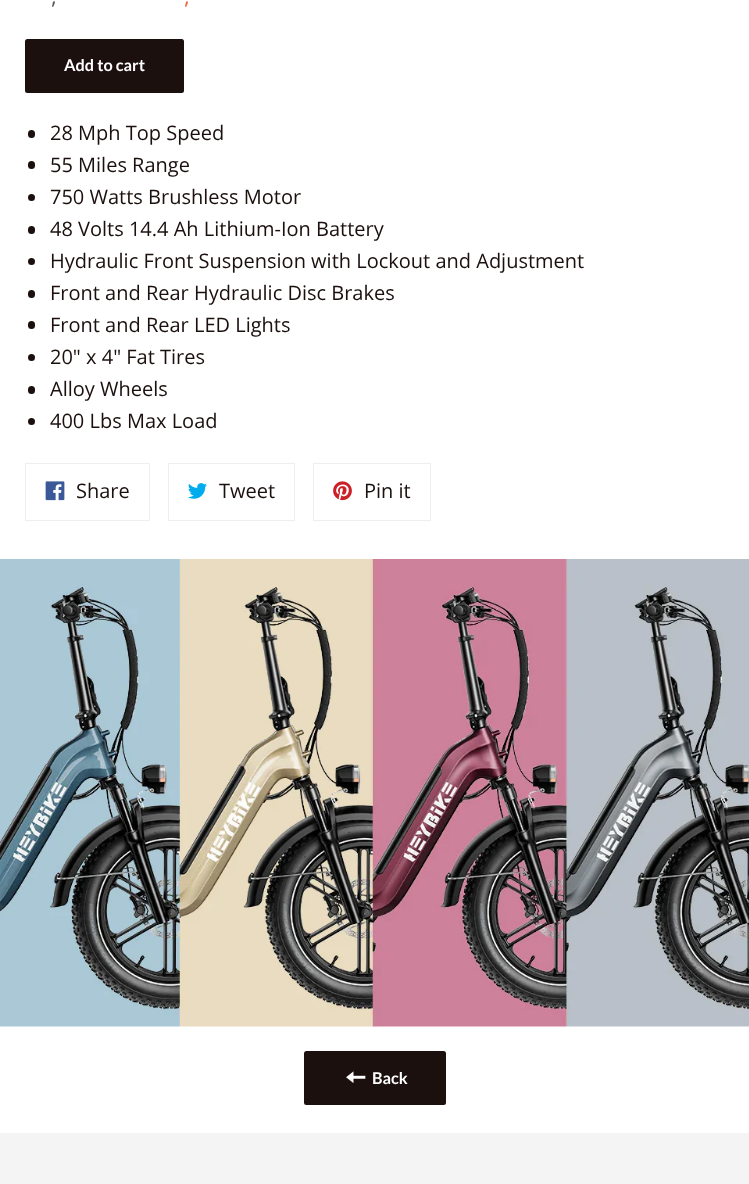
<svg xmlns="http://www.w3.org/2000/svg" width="749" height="1184">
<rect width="100%" height="100%" fill="#fff"/>
<text x="51" y="4" style="font-family:Open Sans;font-size:22px;fill:#5f5856">,</text>
<text x="184" y="4" style="font-family:Open Sans;font-size:22px;fill:#f26241">,</text>
<rect x="25" y="39" width="159" height="54" rx="2.5" fill="#1b100e"/>
<text x="64" y="71" style="font-family:Lato;font-size:16.25px;font-weight:bold;fill:#fff">Add to cart</text>
<rect x="28" y="130" width="7" height="8" rx="3.5" fill="#1b100e"/>
<text x="50" y="140" style="font-family:Open Sans;font-size:20px;fill:#1b100e">28 Mph Top Speed</text>
<rect x="28" y="161" width="7" height="8" rx="3.5" fill="#1b100e"/>
<text x="50" y="172" style="font-family:Open Sans;font-size:20px;fill:#1b100e">55 Miles Range</text>
<circle cx="31.5" cy="197.5" r="3.5" fill="#1b100e"/>
<text x="50" y="204" style="font-family:Open Sans;font-size:20px;fill:#1b100e">750 Watts Brushless Motor</text>
<rect x="28" y="226" width="7" height="8" rx="3.5" fill="#1b100e"/>
<text x="50" y="236" style="font-family:Open Sans;font-size:20px;fill:#1b100e">48 Volts 14.4 Ah Lithium-Ion Battery</text>
<circle cx="31.5" cy="261.5" r="3.5" fill="#1b100e"/>
<text x="50" y="268" style="font-family:Open Sans;font-size:20px;fill:#1b100e">Hydraulic Front Suspension with Lockout and Adjustment</text>
<rect x="28" y="290" width="7" height="8" rx="3.5" fill="#1b100e"/>
<text x="50" y="300" style="font-family:Open Sans;font-size:20px;fill:#1b100e">Front and Rear Hydraulic Disc Brakes</text>
<rect x="28" y="321" width="7" height="8" rx="3.5" fill="#1b100e"/>
<text x="50" y="332" style="font-family:Open Sans;font-size:20px;fill:#1b100e">Front and Rear LED Lights</text>
<circle cx="31.5" cy="357.5" r="3.5" fill="#1b100e"/>
<text x="50" y="364" style="font-family:Open Sans;font-size:20px;fill:#1b100e">20" x 4" Fat Tires</text>
<rect x="28" y="386" width="7" height="8" rx="3.5" fill="#1b100e"/>
<text x="50" y="396" style="font-family:Open Sans;font-size:20px;fill:#1b100e">Alloy Wheels</text>
<circle cx="31.5" cy="421.5" r="3.5" fill="#1b100e"/>
<text x="50" y="428" style="font-family:Open Sans;font-size:20px;fill:#1b100e">400 Lbs Max Load</text>
<rect x="25.5" y="463.5" width="124" height="57" fill="none" stroke="#eceff1"/>
<image x="45" y="481" width="20" height="20" href="media/1.png"/>
<text x="76" y="498" style="font-family:Open Sans;font-size:20px;fill:#1b100e">Share</text>
<rect x="168.5" y="463.5" width="126" height="57" fill="none" stroke="#eceff1"/>
<image x="188" y="483" width="19" height="16" href="media/2.png"/>
<text x="219" y="498" style="font-family:Open Sans;font-size:20px;fill:#1b100e">Tweet</text>
<rect x="313.5" y="463.5" width="117" height="57" fill="none" stroke="#eceff1"/>
<image x="333" y="481" width="19" height="20" href="media/3.png"/>
<text x="364" y="498" style="font-family:Open Sans;font-size:20px;fill:#1b100e">Pin it</text>
<image x="0" y="559" width="749" height="468" href="media/4.png"/>
<rect x="304" y="1051" width="142" height="54" rx="2.5" fill="#1b100e"/>
<image x="346" y="1071" width="20" height="12" href="media/5.png"/>
<text x="372" y="1084" style="font-family:Lato;font-size:16.25px;font-weight:bold;fill:#fff">Back</text>
<rect y="1133" width="749" height="51" fill="#f4f4f4"/>
</svg>
